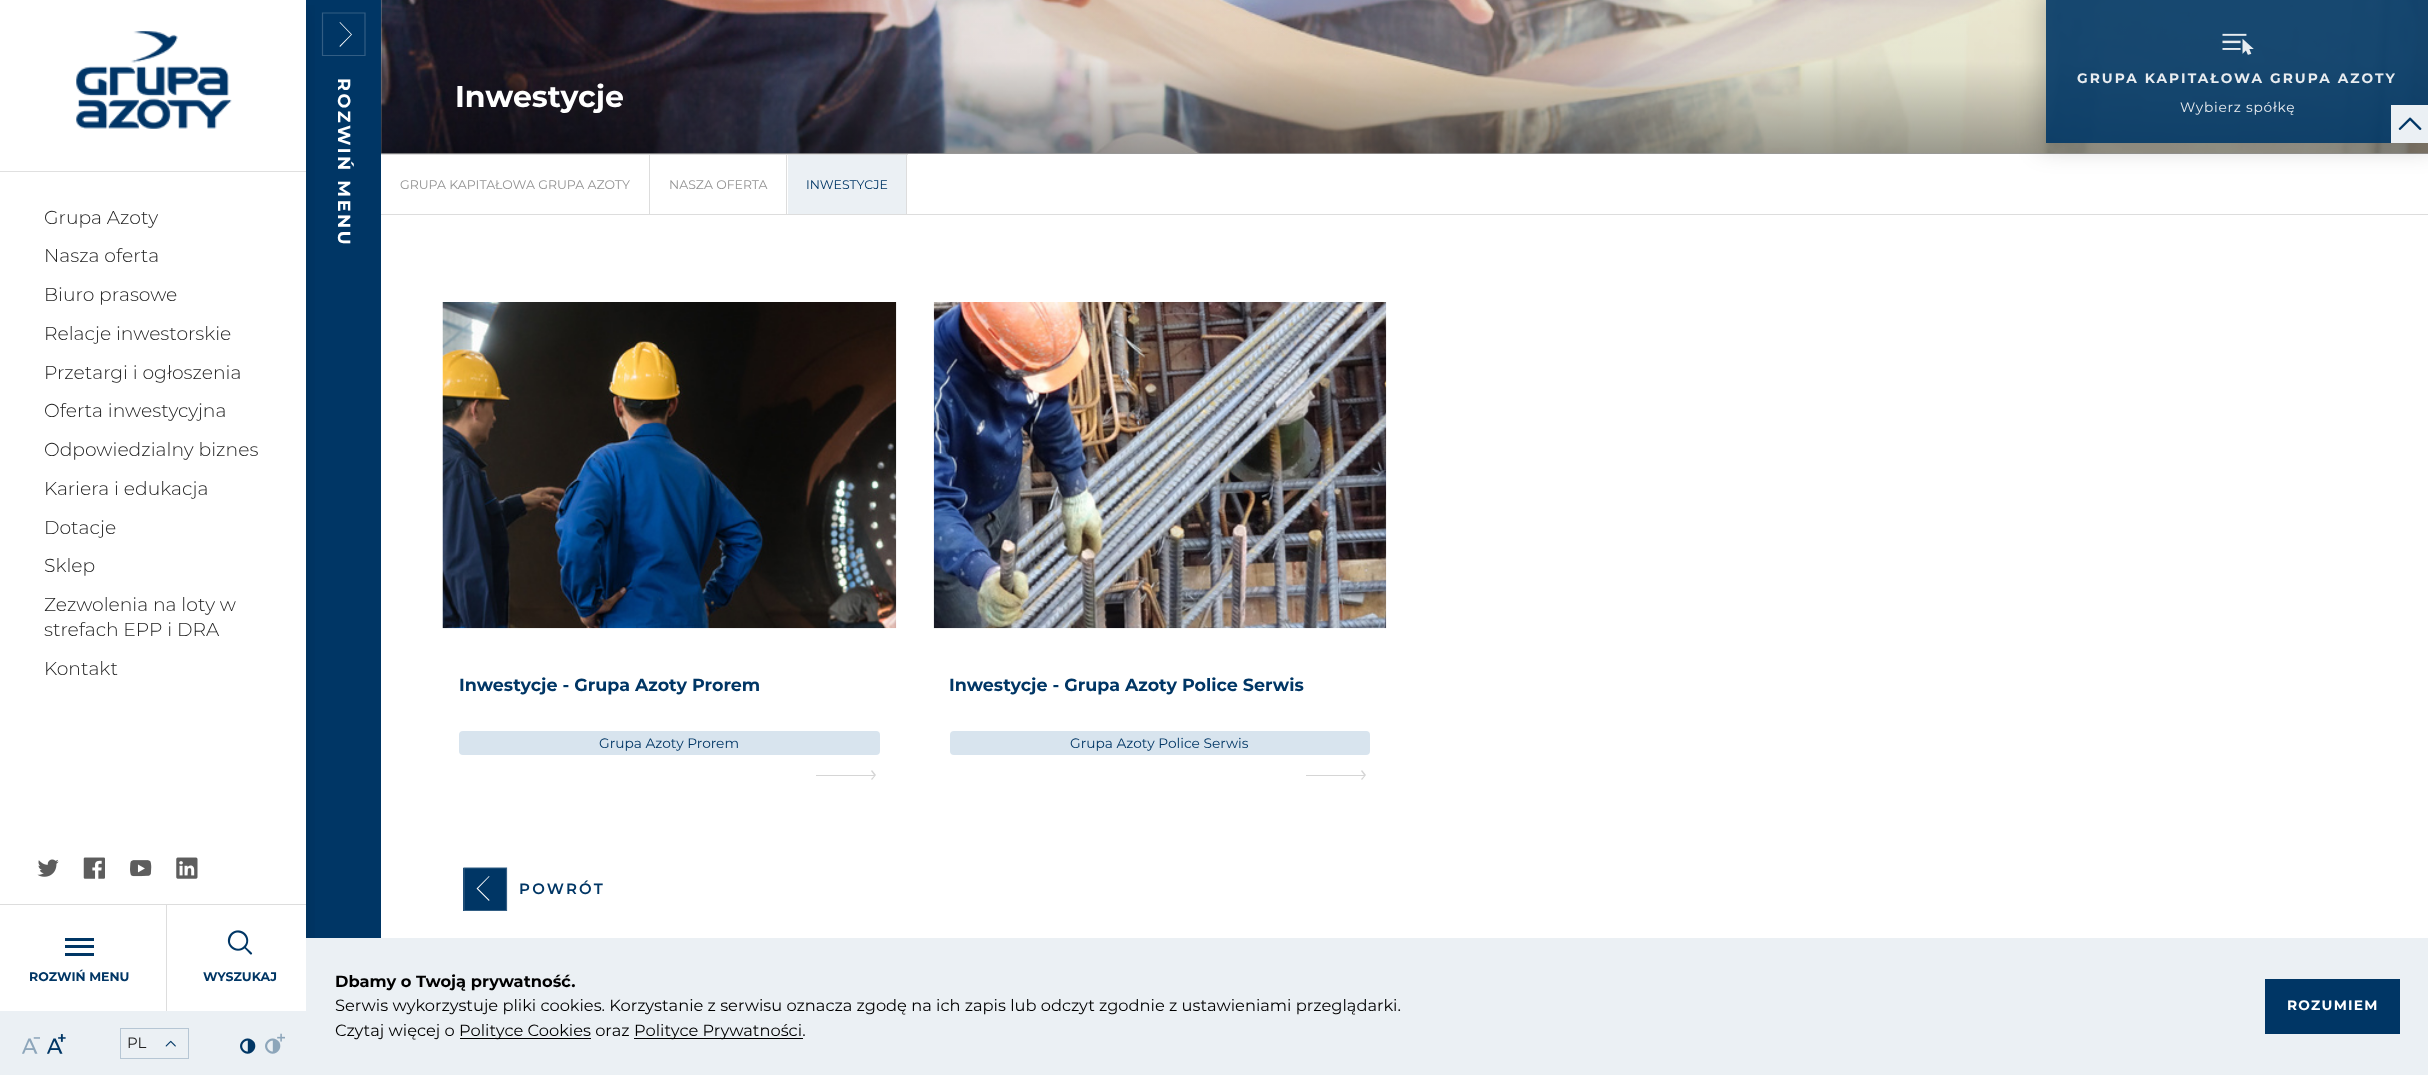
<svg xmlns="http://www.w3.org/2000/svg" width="2428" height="1075">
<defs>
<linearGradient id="g1" gradientUnits="userSpaceOnUse" x1="1405" y1="154" x2="1405" y2="-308"><stop offset="0" stop-color="#000" stop-opacity="0.4"/><stop offset="0.2" stop-color="#000" stop-opacity="0.1"/><stop offset="1" stop-color="#000" stop-opacity="0"/></linearGradient>
<clipPath id="clip1"><path d="M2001 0h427v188h-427zm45 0h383v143h-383z" clip-rule="evenodd"/></clipPath>
<clipPath id="clip2"><rect x="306" y="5" width="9" height="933"/></clipPath>
</defs>
<rect width="100%" height="100%" fill="#fff"/>
<image x="381" y="0" width="2047" height="154" href="media/14.png"/>
<rect x="381" width="2047" height="154" fill="url(#g1)"/>
<g clip-path="url(#clip1)">
<rect x="2040" y="-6" width="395" height="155" fill="#0000002e" filter="blur(12.5px)"/>
</g>
<rect x="2046" width="382" height="143" fill="#003665e6"/>
<image x="2222" y="33" width="32" height="22" href="media/1.png"/>
<text x="2077" y="83" style="font-family:Montserrat;font-size:13.75px;font-weight:bold;letter-spacing:2.05px;fill:#e8ecf0">GRUPA KAPITAŁOWA GRUPA AZOTY</text>
<text x="2180" y="112" style="font-family:Montserrat;font-size:13.75px;letter-spacing:0.75px;fill:#e8ecf0">Wybierz spółkę</text>
<rect x="2391" y="105" width="37" height="38" fill="#ebf0f4"/>
<image x="2398" y="117" width="24" height="13" href="media/2.png"/>
<rect x="306" width="75" height="938" fill="#003665"/>
<path d="M322.5 55.5v-42.5h42.5v42.5z" fill="none" stroke="#335e84" stroke-width="1.2"/>
<g clip-path="url(#clip2)">
<rect x="8" y="8" width="291" height="1060" fill="#00000033" filter="blur(12.5px)"/>
</g>
<image x="76" y="31" width="156" height="98" href="media/3.png"/>
<rect y="171" width="306" height="1" fill="#e0e0e0"/>
<text x="44" y="224" style="font-family:Montserrat;font-size:18.75px;font-weight:300;fill:#222">Grupa Azoty</text>
<text x="44" y="262" style="font-family:Montserrat;font-size:18.75px;font-weight:300;fill:#222">Nasza oferta</text>
<text x="44" y="301" style="font-family:Montserrat;font-size:18.75px;font-weight:300;fill:#222">Biuro prasowe</text>
<text x="44" y="340" style="font-family:Montserrat;font-size:18.75px;font-weight:300;fill:#222">Relacje inwestorskie</text>
<text x="44" y="379" style="font-family:Montserrat;font-size:18.75px;font-weight:300;fill:#222">Przetargi i ogłoszenia</text>
<text x="44" y="417" style="font-family:Montserrat;font-size:18.75px;font-weight:300;fill:#222">Oferta inwestycyjna</text>
<text x="44" y="456" style="font-family:Montserrat;font-size:18.75px;font-weight:300;fill:#222">Odpowiedzialny biznes</text>
<text x="44" y="495" style="font-family:Montserrat;font-size:18.75px;font-weight:300;fill:#222">Kariera i edukacja</text>
<text x="44" y="534" style="font-family:Montserrat;font-size:18.75px;font-weight:300;fill:#222">Dotacje</text>
<text x="44" y="572" style="font-family:Montserrat;font-size:18.75px;font-weight:300;fill:#222">Sklep</text>
<text x="44" y="611" style="font-family:Montserrat;font-size:18.75px;font-weight:300;fill:#222">Zezwolenia na loty w</text>
<text x="44" y="636" style="font-family:Montserrat;font-size:18.75px;font-weight:300;fill:#222">strefach EPP i DRA</text>
<text x="44" y="675" style="font-family:Montserrat;font-size:18.75px;font-weight:300;fill:#222">Kontakt</text>
<image x="37" y="859" width="22" height="18" href="media/4.png"/>
<image x="83" y="857" width="22" height="22" href="media/5.png"/>
<image x="130" y="860" width="22" height="17" href="media/6.png"/>
<image x="176" y="857" width="22" height="22" href="media/7.png"/>
<rect y="904" width="306" height="1" fill="#ddd"/>
<rect x="166" y="905" width="1" height="106" fill="#ddd"/>
<rect x="65" y="938" width="29" height="3" fill="#003665"/>
<rect x="65" y="945" width="29" height="3" fill="#003665"/>
<rect x="65" y="953" width="29" height="3" fill="#003665"/>
<text x="29" y="981" style="font-family:Montserrat;font-size:12.5px;font-weight:bold;fill:#003665">ROZWIŃ MENU</text>
<image x="227" y="930" width="26" height="25" href="media/8.png"/>
<text x="203" y="981" style="font-family:Montserrat;font-size:12.5px;font-weight:bold;fill:#003665">WYSZUKAJ</text>
<rect y="1011" width="306" height="64" fill="#ebf0f4"/>
<image x="22" y="1037" width="18" height="17" href="media/9.png"/>
<image x="47" y="1034" width="19" height="20" href="media/10.png"/>
<rect x="120.5" y="1028.5" width="68" height="30" fill="none" stroke="#b6c6d4"/>
<text x="127" y="1048" style="font-family:Montserrat;font-size:15px;fill:#222">PL</text>
<image x="165" y="1040" width="11" height="7" href="media/11.png"/>
<image x="240" y="1038" width="16" height="16" href="media/12.png"/>
<image x="265" y="1033" width="20" height="21" href="media/13.png"/>
<path d="M339.5 22.5l11.5 12l-11.5 11.5l.5 1l12-12.5l-12-12.5z" fill="#fff"/>
<text x="338" y="78" transform="rotate(90 338 78)" style="font-family:Montserrat;font-size:17.5px;font-weight:bold;letter-spacing:2.6px;fill:#fff">ROZWIŃ MENU</text>
<text x="455" y="107" style="font-family:Montserrat;font-size:30px;font-weight:bold;fill:#fff">Inwestycje</text>
<rect x="381" y="214" width="2047" height="1" fill="#ddd"/>
<rect x="381" y="154" width="527" height="1" fill="#ddd"/>
<rect x="649" y="154" width="1" height="60" fill="#ddd"/>
<text x="400" y="189" style="font-family:Montserrat;font-size:12.5px;fill:#949494">GRUPA KAPITAŁOWA GRUPA AZOTY</text>
<rect x="786" y="154" width="1" height="60" fill="#ddd"/>
<text x="669" y="189" style="font-family:Montserrat;font-size:12.5px;fill:#949494">NASZA OFERTA</text>
<rect x="906" y="154" width="1" height="60" fill="#ddd"/>
<rect x="788" y="155" width="118" height="59" fill="#ebf0f4"/>
<text x="806" y="189" style="font-family:Montserrat;font-size:12.5px;fill:#003665">INWESTYCJE</text>
<image x="442" y="302" width="455" height="327" href="media/15.png"/>
<text x="459" y="691" style="font-family:Montserrat;font-size:17.5px;font-weight:bold;fill:#003665">Inwestycje - Grupa Azoty Prorem</text>
<rect x="459" y="731" width="421" height="24" rx="4" fill="#d8e4ee"/>
<text x="599" y="748" style="font-family:Montserrat;font-size:13.75px;fill:#003665">Grupa Azoty Prorem</text>
<path d="M872 770l-1 1l3 4h-58v1h58l-3 3l1 1l4-5z" fill="#d5d5d5"/>
<image x="933" y="302" width="454" height="327" href="media/16.png"/>
<text x="949" y="691" style="font-family:Montserrat;font-size:17.5px;font-weight:bold;fill:#003665">Inwestycje - Grupa Azoty Police Serwis</text>
<rect x="950" y="731" width="420" height="24" rx="4" fill="#d8e4ee"/>
<text x="1070" y="748" style="font-family:Montserrat;font-size:13.75px;fill:#003665">Grupa Azoty Police Serwis</text>
<path d="M1362 770l-1 1l3 4h-58v1h58l-3 3l1 1l4-5z" fill="#d5d5d5"/>
<rect x="463" y="868" width="43" height="43" fill="#003665"/>
<path d="M506.5 868v42.5h-42.5v-42.5z" fill="none" stroke="#335e84" stroke-width="1.2"/>
<path d="M489.5 900l-11.5-11.5l11.5-12l-.5-.5l-12.5 12.5l12.5 12.5z" fill="#fff"/>
<text x="519" y="894" style="font-family:Montserrat;font-size:15px;font-weight:600;letter-spacing:2.25px;fill:#003665">POWRÓT</text>
<rect x="306" y="938" width="2122" height="137" fill="#ebf0f4"/>
<text x="335" y="987" style="font-family:Montserrat;font-size:16.25px;font-weight:bold;fill:#000">Dbamy o Twoją prywatność.</text>
<text x="335" y="1011" style="font-family:Montserrat;font-size:16.25px;fill:#000">Serwis wykorzystuje pliki cookies. Korzystanie z serwisu oznacza zgodę na ich zapis lub odczyt zgodnie z ustawieniami przeglądarki.</text>
<text x="335" y="1036" style="font-family:Montserrat;font-size:16.25px;fill:#000">Czytaj więcej o</text>
<rect x="460" y="1038" width="131" height="1" fill="#000"/>
<text x="459" y="1036" style="font-family:Montserrat;font-size:16.25px;fill:#000">Polityce Cookies oraz</text>
<rect x="634" y="1038" width="169" height="1" fill="#000"/>
<text x="634" y="1036" style="font-family:Montserrat;font-size:16.25px;fill:#000">Polityce Prywatności.</text>
<rect x="2265" y="979" width="135" height="55" fill="#003665"/>
<text x="2287" y="1010" style="font-family:Montserrat;font-size:13.75px;font-weight:bold;letter-spacing:1.25px;fill:#fff">ROZUMIEM</text>
</svg>
